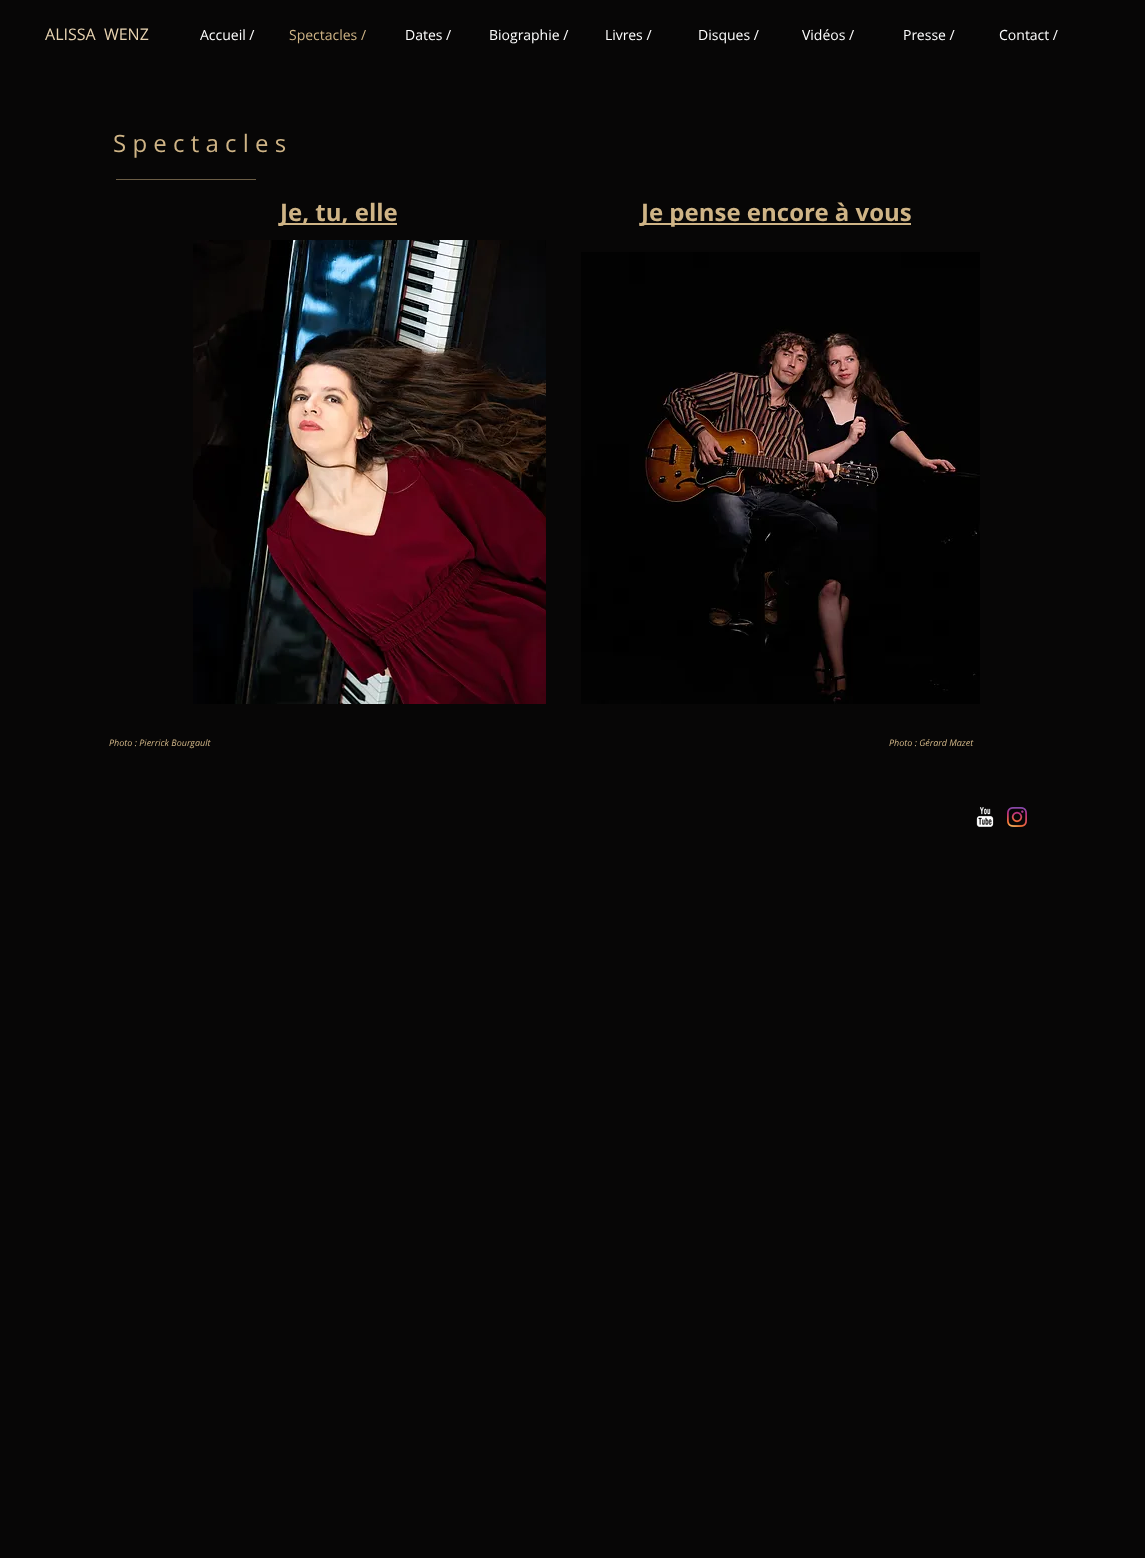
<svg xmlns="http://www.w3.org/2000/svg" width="1145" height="1558">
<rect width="100%" height="100%" fill="#070606"/>
<text x="45" y="40" style="font-family:Open Sans;font-size:16px;fill:#e7d3b1" xml:space="preserve">ALISSA  WENZ</text>
<text x="200" y="40" style="font-family:Open Sans;font-size:14px;fill:#fff">Accueil /</text>
<text x="289" y="40" style="font-family:Open Sans;font-size:14px;fill:#cfb486">Spectacles /</text>
<text x="405" y="40" style="font-family:Open Sans;font-size:14px;fill:#fff">Dates /</text>
<text x="489" y="40" style="font-family:Open Sans;font-size:14px;fill:#fff">Biographie /</text>
<text x="605" y="40" style="font-family:Open Sans;font-size:14px;fill:#fff">Livres /</text>
<text x="698" y="40" style="font-family:Open Sans;font-size:14px;fill:#fff">Disques /</text>
<text x="802" y="40" style="font-family:Open Sans;font-size:14px;fill:#fff">Vidéos /</text>
<text x="903" y="40" style="font-family:Open Sans;font-size:14px;fill:#fff">Presse /</text>
<text x="999" y="40" style="font-family:Open Sans;font-size:14px;fill:#fff">Contact /</text>
<text x="113" y="152" style="font-family:Open Sans;font-size:24px;fill:#cfb486">S p e c t a c l e s</text>
<rect x="116" y="179" width="140" height="1" fill="#6b5d46"/>
<rect x="280" y="223" width="117" height="2" fill="#cfb486"/>
<text x="280" y="221" style="font-family:Open Sans;font-size:24px;font-weight:bold;fill:#cfb486">Je, tu, elle</text>
<rect x="641" y="223" width="270" height="2" fill="#cfb486"/>
<text x="641" y="221" style="font-family:Open Sans;font-size:24px;font-weight:bold;fill:#cfb486">Je pense encore à vous</text>
<image x="193" y="240" width="353" height="464" href="media/1.png"/>
<image x="581" y="252" width="399" height="452" href="media/2.png"/>
<text x="109" y="746" style="font-family:Open Sans;font-size:9px;font-style:italic;fill:#cfb486">Photo : Pierrick Bourgault</text>
<text x="889" y="746" style="font-family:Open Sans;font-size:9px;font-style:italic;fill:#cfb486">Photo : Gérard Mazet</text>
<image x="976" y="807" width="18" height="20" href="media/3.png"/>
<image x="1007" y="807" width="20" height="20" href="media/4.png"/>
</svg>
